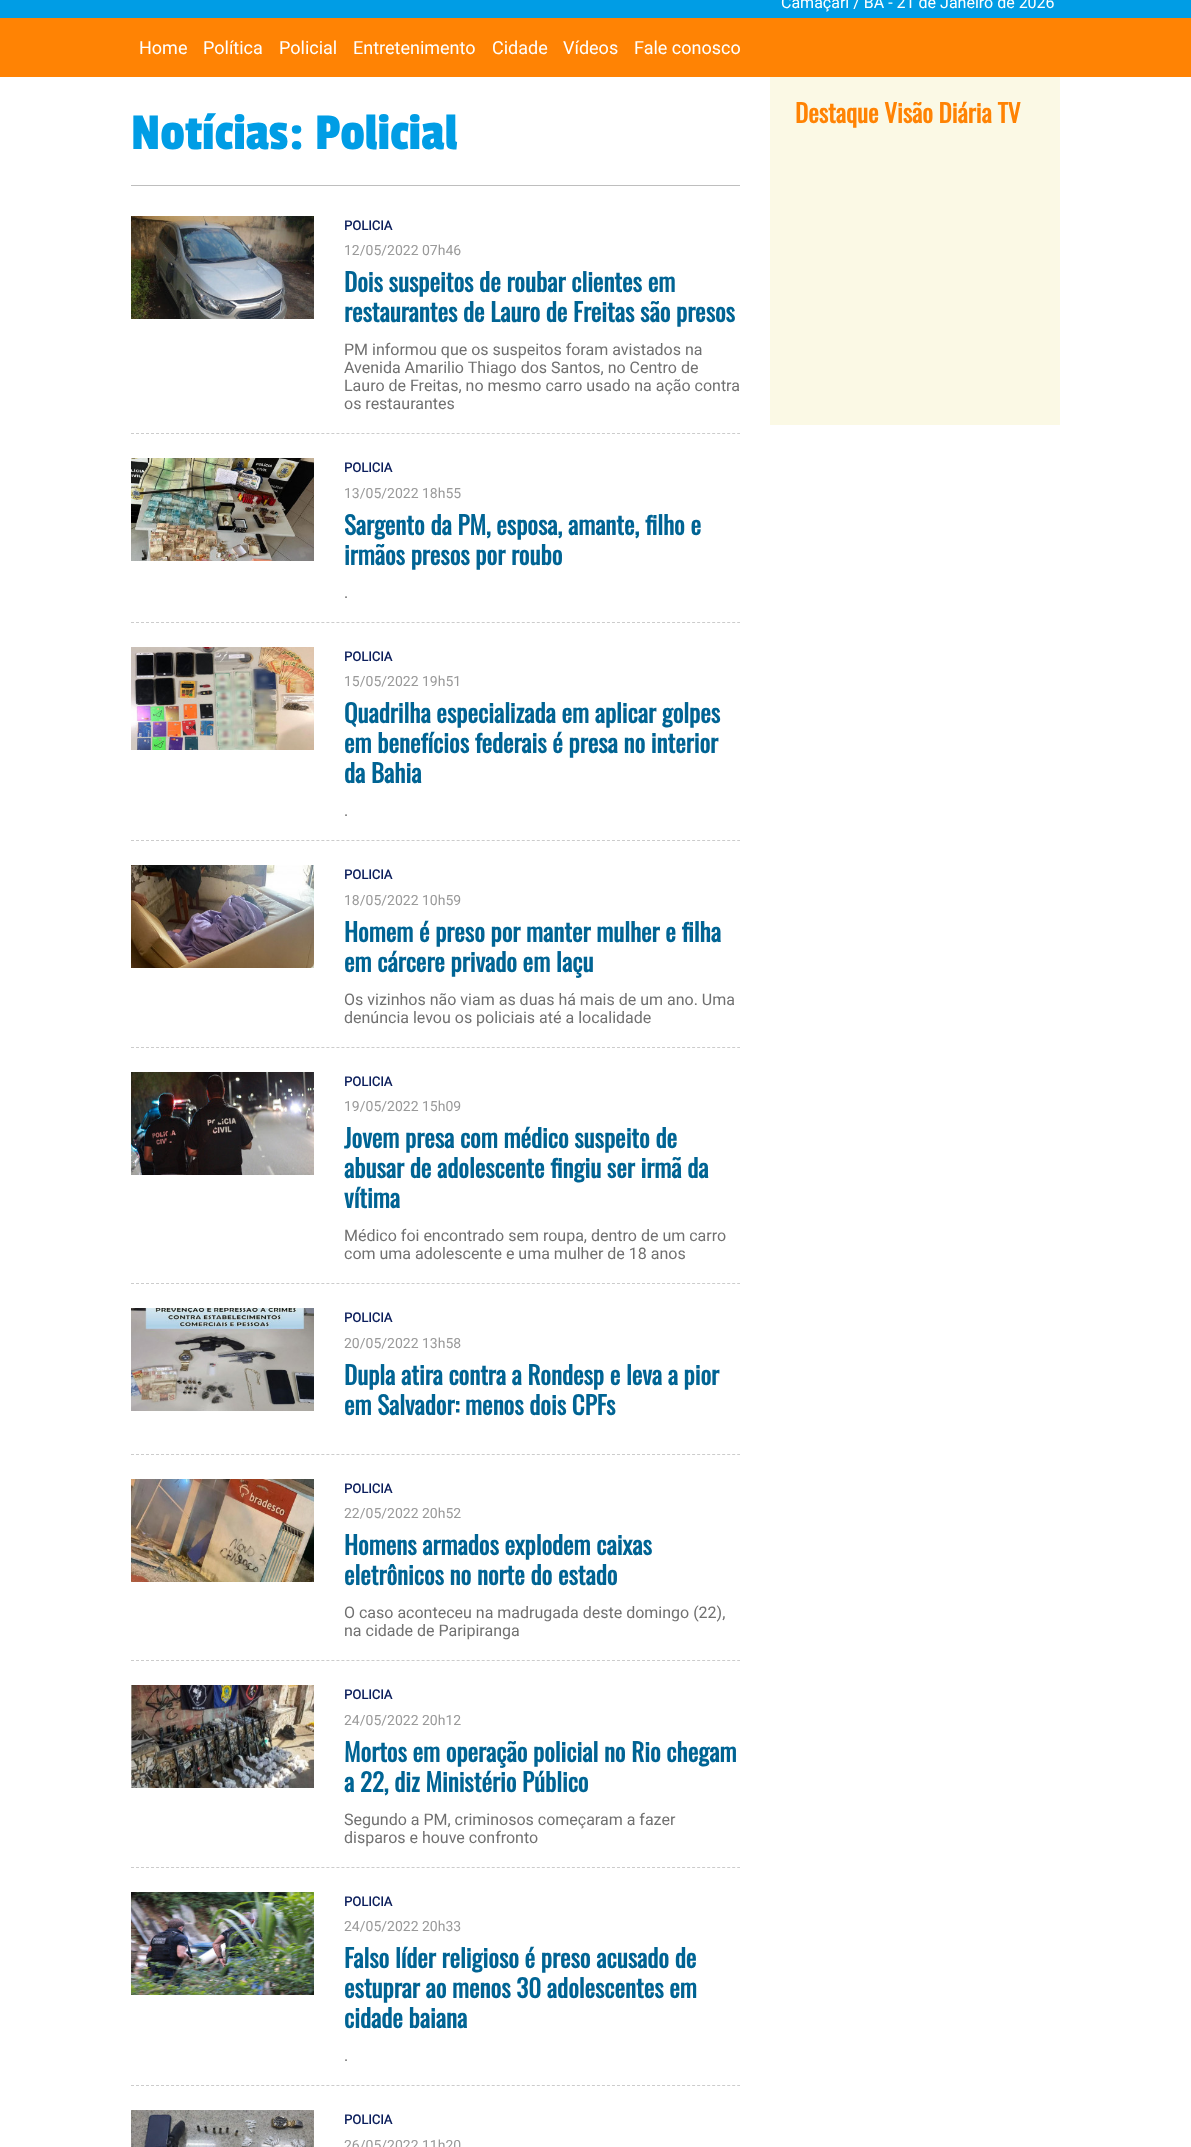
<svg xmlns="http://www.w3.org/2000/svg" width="1191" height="2147">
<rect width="100%" height="100%" fill="#fff"/>
<rect width="1191" height="18" fill="#009de5"/>
<text x="781" y="8" style="font-family:Roboto;font-size:16px;fill:#fff">Camaçarí / BA - 21 de Janeiro de 2026</text>
<rect y="18" width="1191" height="59" fill="#ff8304"/>
<text x="139" y="54" style="font-family:Roboto;font-size:18px;fill:#fff">Home</text>
<text x="203" y="54" style="font-family:Roboto;font-size:18px;fill:#fff">Política</text>
<text x="279" y="54" style="font-family:Roboto;font-size:18px;fill:#fff">Policial</text>
<text x="353" y="54" style="font-family:Roboto;font-size:18px;fill:#fff">Entretenimento</text>
<text x="492" y="54" style="font-family:Roboto;font-size:18px;fill:#fff">Cidade</text>
<text x="563" y="54" style="font-family:Roboto;font-size:18px;fill:#fff">Vídeos</text>
<text x="634" y="54" style="font-family:Roboto;font-size:18px;fill:#fff">Fale conosco</text>
<rect x="131" y="185" width="609" height="1" fill="#bebebe"/>
<text x="131" y="149" style="font-family:Passion One;font-size:54px;fill:#009de5">Notícias: Policial</text>
<path d="M131 433.5h609" fill="none" stroke="#ccc" stroke-dasharray="3 2.01"/>
<image x="131" y="216" width="183" height="103" href="media/1.png"/>
<text x="344" y="230" style="font-family:Roboto;font-size:13px;font-weight:bold;fill:#0b1e5c">POLICIA</text>
<text x="344" y="255" style="font-family:Roboto;font-size:14px;fill:#999">12/05/2022 07h46</text>
<text x="344" y="292" style="font-family:Oswald;font-size:25px;font-weight:bold;fill:#006494">Dois suspeitos de roubar clientes em</text>
<text x="344" y="322" style="font-family:Oswald;font-size:25px;font-weight:bold;fill:#006494">restaurantes de Lauro de Freitas são presos</text>
<text x="344" y="355" style="font-family:Roboto;font-size:16px;fill:#707070">PM informou que os suspeitos foram avistados na</text>
<text x="344" y="373" style="font-family:Roboto;font-size:16px;fill:#707070">Avenida Amarilio Thiago dos Santos, no Centro de</text>
<text x="344" y="391" style="font-family:Roboto;font-size:16px;fill:#707070">Lauro de Freitas, no mesmo carro usado na ação contra</text>
<text x="344" y="409" style="font-family:Roboto;font-size:16px;fill:#707070">os restaurantes</text>
<path d="M131 622.5h609" fill="none" stroke="#ccc" stroke-dasharray="3 2.01"/>
<image x="131" y="458" width="183" height="103" href="media/2.png"/>
<text x="344" y="472" style="font-family:Roboto;font-size:13px;font-weight:bold;fill:#0b1e5c">POLICIA</text>
<text x="344" y="498" style="font-family:Roboto;font-size:14px;fill:#999">13/05/2022 18h55</text>
<text x="344" y="535" style="font-family:Oswald;font-size:25px;font-weight:bold;fill:#006494">Sargento da PM, esposa, amante, filho e</text>
<text x="344" y="565" style="font-family:Oswald;font-size:25px;font-weight:bold;fill:#006494">irmãos presos por roubo</text>
<text x="344" y="598" style="font-family:Roboto;font-size:16px;fill:#707070">.</text>
<path d="M131 840.5h609" fill="none" stroke="#ccc" stroke-dasharray="3 2.01"/>
<image x="131" y="647" width="183" height="103" href="media/3.png"/>
<text x="344" y="661" style="font-family:Roboto;font-size:13px;font-weight:bold;fill:#0b1e5c">POLICIA</text>
<text x="344" y="686" style="font-family:Roboto;font-size:14px;fill:#999">15/05/2022 19h51</text>
<text x="344" y="723" style="font-family:Oswald;font-size:25px;font-weight:bold;fill:#006494">Quadrilha especializada em aplicar golpes</text>
<text x="344" y="753" style="font-family:Oswald;font-size:25px;font-weight:bold;fill:#006494">em benefícios federais é presa no interior</text>
<text x="344" y="783" style="font-family:Oswald;font-size:25px;font-weight:bold;fill:#006494">da Bahia</text>
<text x="344" y="816" style="font-family:Roboto;font-size:16px;fill:#707070">.</text>
<path d="M131 1047.5h609" fill="none" stroke="#ccc" stroke-dasharray="3 2.01"/>
<image x="131" y="865" width="183" height="103" href="media/4.png"/>
<text x="344" y="879" style="font-family:Roboto;font-size:13px;font-weight:bold;fill:#0b1e5c">POLICIA</text>
<text x="344" y="905" style="font-family:Roboto;font-size:14px;fill:#999">18/05/2022 10h59</text>
<text x="344" y="942" style="font-family:Oswald;font-size:25px;font-weight:bold;fill:#006494">Homem é preso por manter mulher e filha</text>
<text x="344" y="972" style="font-family:Oswald;font-size:25px;font-weight:bold;fill:#006494">em cárcere privado em Iaçu</text>
<text x="344" y="1005" style="font-family:Roboto;font-size:16px;fill:#707070">Os vizinhos não viam as duas há mais de um ano. Uma</text>
<text x="344" y="1023" style="font-family:Roboto;font-size:16px;fill:#707070">denúncia levou os policiais até a localidade</text>
<path d="M131 1283.5h609" fill="none" stroke="#ccc" stroke-dasharray="3 2.01"/>
<image x="131" y="1072" width="183" height="103" href="media/5.png"/>
<text x="344" y="1086" style="font-family:Roboto;font-size:13px;font-weight:bold;fill:#0b1e5c">POLICIA</text>
<text x="344" y="1111" style="font-family:Roboto;font-size:14px;fill:#999">19/05/2022 15h09</text>
<text x="344" y="1148" style="font-family:Oswald;font-size:25px;font-weight:bold;fill:#006494">Jovem presa com médico suspeito de</text>
<text x="344" y="1178" style="font-family:Oswald;font-size:25px;font-weight:bold;fill:#006494">abusar de adolescente fingiu ser irmã da</text>
<text x="344" y="1208" style="font-family:Oswald;font-size:25px;font-weight:bold;fill:#006494">vítima</text>
<text x="344" y="1241" style="font-family:Roboto;font-size:16px;fill:#707070">Médico foi encontrado sem roupa, dentro de um carro</text>
<text x="344" y="1259" style="font-family:Roboto;font-size:16px;fill:#707070">com uma adolescente e uma mulher de 18 anos</text>
<path d="M131 1454.5h609" fill="none" stroke="#ccc" stroke-dasharray="3 2.01"/>
<image x="131" y="1308" width="183" height="103" href="media/6.png"/>
<text x="344" y="1322" style="font-family:Roboto;font-size:13px;font-weight:bold;fill:#0b1e5c">POLICIA</text>
<text x="344" y="1348" style="font-family:Roboto;font-size:14px;fill:#999">20/05/2022 13h58</text>
<text x="344" y="1385" style="font-family:Oswald;font-size:25px;font-weight:bold;fill:#006494">Dupla atira contra a Rondesp e leva a pior</text>
<text x="344" y="1415" style="font-family:Oswald;font-size:25px;font-weight:bold;fill:#006494">em Salvador: menos dois CPFs</text>
<path d="M131 1660.5h609" fill="none" stroke="#ccc" stroke-dasharray="3 2.01"/>
<image x="131" y="1479" width="183" height="103" href="media/7.png"/>
<text x="344" y="1493" style="font-family:Roboto;font-size:13px;font-weight:bold;fill:#0b1e5c">POLICIA</text>
<text x="344" y="1518" style="font-family:Roboto;font-size:14px;fill:#999">22/05/2022 20h52</text>
<text x="344" y="1555" style="font-family:Oswald;font-size:25px;font-weight:bold;fill:#006494">Homens armados explodem caixas</text>
<text x="344" y="1585" style="font-family:Oswald;font-size:25px;font-weight:bold;fill:#006494">eletrônicos no norte do estado</text>
<text x="344" y="1618" style="font-family:Roboto;font-size:16px;fill:#707070">O caso aconteceu na madrugada deste domingo (22),</text>
<text x="344" y="1636" style="font-family:Roboto;font-size:16px;fill:#707070">na cidade de Paripiranga</text>
<path d="M131 1867.5h609" fill="none" stroke="#ccc" stroke-dasharray="3 2.01"/>
<image x="131" y="1685" width="183" height="103" href="media/8.png"/>
<text x="344" y="1699" style="font-family:Roboto;font-size:13px;font-weight:bold;fill:#0b1e5c">POLICIA</text>
<text x="344" y="1725" style="font-family:Roboto;font-size:14px;fill:#999">24/05/2022 20h12</text>
<text x="344" y="1762" style="font-family:Oswald;font-size:25px;font-weight:bold;fill:#006494">Mortos em operação policial no Rio chegam</text>
<text x="344" y="1792" style="font-family:Oswald;font-size:25px;font-weight:bold;fill:#006494">a 22, diz Ministério Público</text>
<text x="344" y="1825" style="font-family:Roboto;font-size:16px;fill:#707070">Segundo a PM, criminosos começaram a fazer</text>
<text x="344" y="1843" style="font-family:Roboto;font-size:16px;fill:#707070">disparos e houve confronto</text>
<path d="M131 2085.5h609" fill="none" stroke="#ccc" stroke-dasharray="3 2.01"/>
<image x="131" y="1892" width="183" height="103" href="media/9.png"/>
<text x="344" y="1906" style="font-family:Roboto;font-size:13px;font-weight:bold;fill:#0b1e5c">POLICIA</text>
<text x="344" y="1931" style="font-family:Roboto;font-size:14px;fill:#999">24/05/2022 20h33</text>
<text x="344" y="1968" style="font-family:Oswald;font-size:25px;font-weight:bold;fill:#006494">Falso líder religioso é preso acusado de</text>
<text x="344" y="1998" style="font-family:Oswald;font-size:25px;font-weight:bold;fill:#006494">estuprar ao menos 30 adolescentes em</text>
<text x="344" y="2028" style="font-family:Oswald;font-size:25px;font-weight:bold;fill:#006494">cidade baiana</text>
<text x="344" y="2061" style="font-family:Roboto;font-size:16px;fill:#707070">.</text>
<image x="131" y="2110" width="183" height="37" href="media/10.png"/>
<text x="344" y="2124" style="font-family:Roboto;font-size:13px;font-weight:bold;fill:#0b1e5c">POLICIA</text>
<text x="344" y="2150" style="font-family:Roboto;font-size:14px;fill:#999">26/05/2022 11h20</text>
<rect x="770" y="77" width="290" height="348" fill="#fbf9e5"/>
<text x="795" y="123" style="font-family:Oswald;font-size:25px;font-weight:bold;fill:#ff8304">Destaque Visão Diária TV</text>
</svg>
